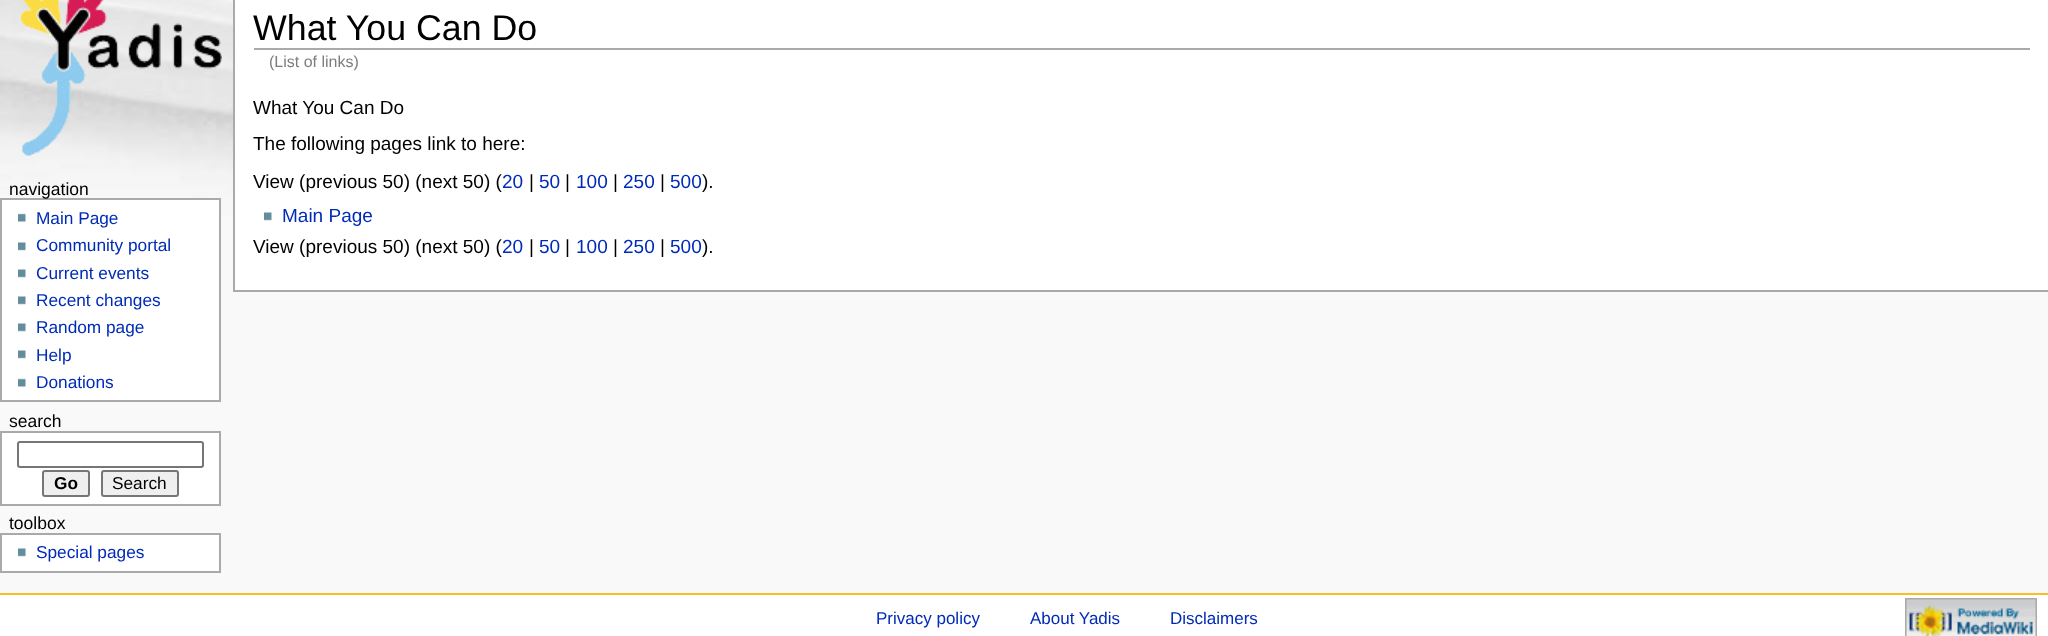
<svg xmlns="http://www.w3.org/2000/svg" width="2048" height="636">
<rect width="100%" height="100%" fill="#f9f9f9"/>
<image x="0" y="0" width="233" height="216" href="media/1.png"/>
<rect x="235" width="1813" height="290" fill="#fff"/>
<rect x="233" y="290" width="1815" height="2" fill="#aaa"/>
<rect x="233" width="2" height="291" fill="#aaa"/>
<rect x="254" y="48" width="1776" height="2" fill="#aaa"/>
<text x="253" y="40" style="font-family:Liberation Sans;font-size:35.75px;fill:#000">What You Can Do</text>
<text x="269" y="67" style="font-family:Liberation Sans;font-size:16px;fill:#7d7d7d">(List of links)</text>
<text x="253" y="114" style="font-family:Liberation Sans;font-size:19px;fill:#000">What You Can Do</text>
<text x="253" y="150" style="font-family:Liberation Sans;font-size:19px;fill:#000">The following pages link to here:</text>
<text x="253" y="188" style="font-family:Liberation Sans;font-size:19px;fill:#000">View (previous 50) (next 50) (</text>
<text x="502" y="188" style="font-family:Liberation Sans;font-size:19px;fill:#002bb8">20</text>
<text x="529" y="188" style="font-family:Liberation Sans;font-size:19px;fill:#000">|</text>
<text x="539" y="188" style="font-family:Liberation Sans;font-size:19px;fill:#002bb8">50</text>
<text x="565" y="188" style="font-family:Liberation Sans;font-size:19px;fill:#000">|</text>
<text x="576" y="188" style="font-family:Liberation Sans;font-size:19px;fill:#002bb8">100</text>
<text x="613" y="188" style="font-family:Liberation Sans;font-size:19px;fill:#000">|</text>
<text x="623" y="188" style="font-family:Liberation Sans;font-size:19px;fill:#002bb8">250</text>
<text x="660" y="188" style="font-family:Liberation Sans;font-size:19px;fill:#000">|</text>
<text x="670" y="188" style="font-family:Liberation Sans;font-size:19px;fill:#002bb8">500</text>
<text x="702" y="188" style="font-family:Liberation Sans;font-size:19px;fill:#000">).</text>
<image x="264" y="212" width="8" height="9" href="media/2.png"/>
<text x="282" y="222" style="font-family:Liberation Sans;font-size:19px;fill:#002bb8">Main Page</text>
<text x="253" y="253" style="font-family:Liberation Sans;font-size:19px;fill:#000">View (previous 50) (next 50) (</text>
<text x="502" y="253" style="font-family:Liberation Sans;font-size:19px;fill:#002bb8">20</text>
<text x="529" y="253" style="font-family:Liberation Sans;font-size:19px;fill:#000">|</text>
<text x="539" y="253" style="font-family:Liberation Sans;font-size:19px;fill:#002bb8">50</text>
<text x="565" y="253" style="font-family:Liberation Sans;font-size:19px;fill:#000">|</text>
<text x="576" y="253" style="font-family:Liberation Sans;font-size:19px;fill:#002bb8">100</text>
<text x="613" y="253" style="font-family:Liberation Sans;font-size:19px;fill:#000">|</text>
<text x="623" y="253" style="font-family:Liberation Sans;font-size:19px;fill:#002bb8">250</text>
<text x="660" y="253" style="font-family:Liberation Sans;font-size:19px;fill:#000">|</text>
<text x="670" y="253" style="font-family:Liberation Sans;font-size:19px;fill:#002bb8">500</text>
<text x="702" y="253" style="font-family:Liberation Sans;font-size:19px;fill:#000">).</text>
<image x="20" y="0" width="202" height="156" href="media/3.png"/>
<rect x="1" y="199" width="219" height="202" fill="#fff" stroke="#aaa" stroke-width="2"/>
<text x="9" y="195" style="font-family:Liberation Sans;font-size:17.5px;fill:#000">navigation</text>
<image x="18" y="213" width="8" height="9" href="media/4.png"/>
<text x="36" y="224" style="font-family:Liberation Sans;font-size:17.25px;fill:#002bb8">Main Page</text>
<image x="18" y="242" width="8" height="9" href="media/2.png"/>
<text x="36" y="251" style="font-family:Liberation Sans;font-size:17.25px;fill:#002bb8">Community portal</text>
<image x="18" y="269" width="8" height="9" href="media/2.png"/>
<text x="36" y="279" style="font-family:Liberation Sans;font-size:17.25px;fill:#002bb8">Current events</text>
<image x="18" y="296" width="8" height="9" href="media/2.png"/>
<text x="36" y="306" style="font-family:Liberation Sans;font-size:17.25px;fill:#002bb8">Recent changes</text>
<image x="18" y="323" width="8" height="9" href="media/2.png"/>
<text x="36" y="333" style="font-family:Liberation Sans;font-size:17.25px;fill:#002bb8">Random page</text>
<image x="18" y="350" width="8" height="9" href="media/2.png"/>
<text x="36" y="361" style="font-family:Liberation Sans;font-size:17.25px;fill:#002bb8">Help</text>
<image x="18" y="378" width="8" height="9" href="media/4.png"/>
<text x="36" y="388" style="font-family:Liberation Sans;font-size:17.25px;fill:#002bb8">Donations</text>
<text x="9" y="427" style="font-family:Liberation Sans;font-size:17.5px;fill:#000">search</text>
<rect x="1" y="432" width="219" height="73" fill="#fff" stroke="#aaa" stroke-width="2"/>
<rect x="18" y="442" width="185" height="25" rx="2" fill="none" stroke="#767676" stroke-width="2"/>
<rect x="43" y="471" width="46" height="25" rx="2" fill="#efefef" stroke="#767676" stroke-width="2"/>
<text x="54" y="489" style="font-family:Liberation Sans;font-size:17.25px;font-weight:bold;fill:#000">Go</text>
<rect x="102" y="471" width="76" height="25" rx="2" fill="#efefef" stroke="#767676" stroke-width="2"/>
<text x="112" y="489" style="font-family:Liberation Sans;font-size:17.25px;fill:#000">Search</text>
<text x="9" y="529" style="font-family:Liberation Sans;font-size:17.5px;fill:#000">toolbox</text>
<rect x="1" y="534" width="219" height="38" fill="#fff" stroke="#aaa" stroke-width="2"/>
<image x="18" y="548" width="8" height="9" href="media/2.png"/>
<text x="36" y="558" style="font-family:Liberation Sans;font-size:17.25px;fill:#002bb8">Special pages</text>
<rect y="595" width="2048" height="41" fill="#fff"/>
<rect y="593" width="2048" height="2" fill="#fabd23"/>
<text x="876" y="624" style="font-family:Liberation Sans;font-size:17px;fill:#002bb8">Privacy policy</text>
<text x="1030" y="624" style="font-family:Liberation Sans;font-size:17px;fill:#002bb8">About Yadis</text>
<text x="1170" y="624" style="font-family:Liberation Sans;font-size:17px;fill:#002bb8">Disclaimers</text>
<image x="1905" y="598" width="132" height="38" href="media/5.png"/>
</svg>
